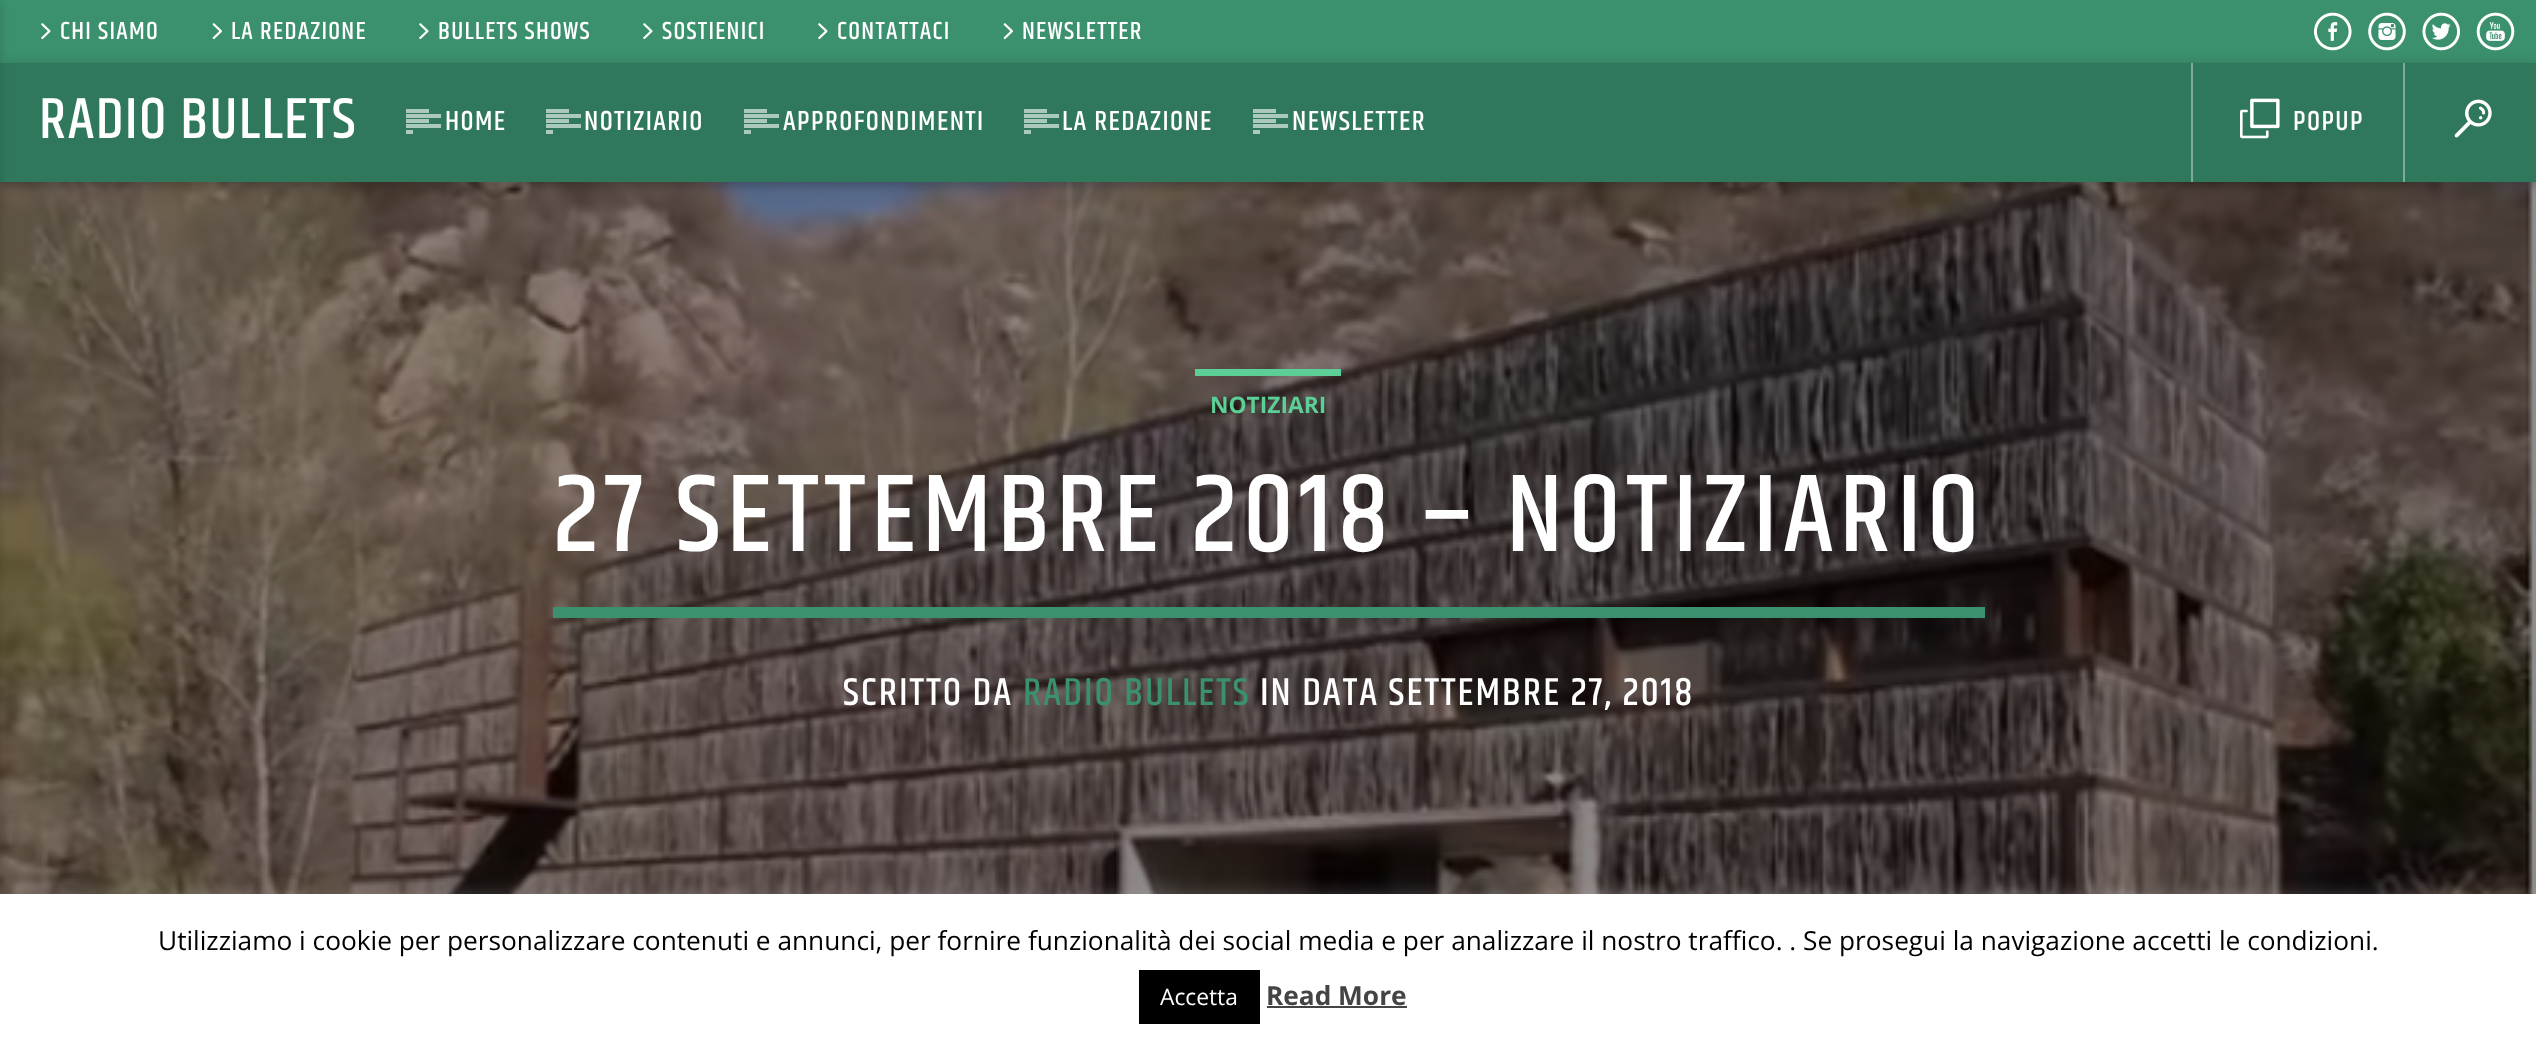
<svg xmlns="http://www.w3.org/2000/svg" width="2536" height="1044">
<rect width="100%" height="100%" fill="#000"/>
<rect width="2536" height="63" fill="#3b906d"/>
<image x="41" y="23" width="10" height="17" href="media/1.png"/>
<image x="212" y="23" width="10" height="17" href="media/2.png"/>
<image x="419" y="23" width="10" height="17" href="media/1.png"/>
<image x="643" y="23" width="10" height="17" href="media/1.png"/>
<image x="818" y="23" width="10" height="17" href="media/1.png"/>
<image x="1003" y="23" width="10" height="17" href="media/2.png"/>
<image x="2313" y="12" width="39" height="39" href="media/3.png"/>
<image x="2368" y="12" width="38" height="39" href="media/4.png"/>
<image x="2422" y="12" width="39" height="39" href="media/5.png"/>
<image x="2476" y="12" width="39" height="39" href="media/6.png"/>
<image x="0" y="182" width="2536" height="712" href="media/9.png"/>
<rect y="67" width="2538" height="119" fill="#0000001f" filter="blur(9px)"/>
<rect y="67" width="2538" height="119" fill="#00000029" filter="blur(4.5px)"/>
<rect y="63" width="2536" height="119" fill="#2f785b"/>
<rect x="-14" y="4" width="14" height="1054" fill="#00000029" filter="blur(4.5px)"/>
<text x="60" y="39" style="font-family:Khand;font-size:25.25px;font-weight:500;letter-spacing:1.25px;fill:#fff">CHI SIAMO</text>
<text x="231" y="39" style="font-family:Khand;font-size:25.25px;font-weight:500;letter-spacing:1.25px;fill:#fff">LA REDAZIONE</text>
<text x="438" y="39" style="font-family:Khand;font-size:25.25px;font-weight:500;letter-spacing:1.25px;fill:#fff">BULLETS SHOWS</text>
<text x="662" y="39" style="font-family:Khand;font-size:25.25px;font-weight:500;letter-spacing:1.25px;fill:#fff">SOSTIENICI</text>
<text x="837" y="39" style="font-family:Khand;font-size:25.25px;font-weight:500;letter-spacing:1.25px;fill:#fff">CONTATTACI</text>
<text x="1022" y="39" style="font-family:Khand;font-size:25.25px;font-weight:500;letter-spacing:1.25px;fill:#fff">NEWSLETTER</text>
<text x="39" y="138" style="font-family:Khand;font-size:58.75px;font-weight:500;letter-spacing:1.4px;fill:#fff">RADIO BULLETS</text>
<rect x="406" y="109" width="23" height="4" fill="#acc9bd"/>
<rect x="406" y="119" width="23" height="4" fill="#acc9bd"/>
<text x="445" y="130" style="font-family:Khand;font-size:28px;font-weight:500;letter-spacing:1.4px;fill:#fff">HOME</text>
<rect x="406" y="114" width="35" height="4" fill="#acc9bd"/>
<rect x="406" y="124" width="35" height="4" fill="#acc9bd"/>
<rect x="406" y="130" width="7" height="4" fill="#acc9bd"/>
<rect x="546" y="109" width="23" height="4" fill="#acc9bd"/>
<rect x="546" y="119" width="23" height="4" fill="#acc9bd"/>
<text x="584" y="130" style="font-family:Khand;font-size:28px;font-weight:500;letter-spacing:1.4px;fill:#fff">NOTIZIARIO</text>
<rect x="546" y="114" width="35" height="4" fill="#acc9bd"/>
<rect x="546" y="124" width="35" height="4" fill="#acc9bd"/>
<rect x="546" y="130" width="7" height="4" fill="#acc9bd"/>
<rect x="744" y="109" width="23" height="4" fill="#acc9bd"/>
<rect x="744" y="119" width="23" height="4" fill="#acc9bd"/>
<text x="783" y="130" style="font-family:Khand;font-size:28px;font-weight:500;letter-spacing:1.4px;fill:#fff">APPROFONDIMENTI</text>
<rect x="744" y="114" width="35" height="4" fill="#acc9bd"/>
<rect x="744" y="124" width="35" height="4" fill="#acc9bd"/>
<rect x="744" y="130" width="7" height="4" fill="#acc9bd"/>
<rect x="1024" y="109" width="23" height="4" fill="#acc9bd"/>
<rect x="1024" y="119" width="23" height="4" fill="#acc9bd"/>
<text x="1062" y="130" style="font-family:Khand;font-size:28px;font-weight:500;letter-spacing:1.4px;fill:#fff">LA REDAZIONE</text>
<rect x="1024" y="114" width="35" height="4" fill="#acc9bd"/>
<rect x="1024" y="124" width="35" height="4" fill="#acc9bd"/>
<rect x="1024" y="130" width="7" height="4" fill="#acc9bd"/>
<rect x="1253" y="109" width="23" height="4" fill="#acc9bd"/>
<rect x="1253" y="119" width="23" height="4" fill="#acc9bd"/>
<text x="1292" y="130" style="font-family:Khand;font-size:28px;font-weight:500;letter-spacing:1.4px;fill:#fff">NEWSLETTER</text>
<rect x="1253" y="114" width="35" height="4" fill="#acc9bd"/>
<rect x="1253" y="124" width="35" height="4" fill="#acc9bd"/>
<rect x="1253" y="130" width="7" height="4" fill="#acc9bd"/>
<rect x="2191" y="63" width="2" height="119" fill="#7eab99"/>
<image x="2240" y="98" width="40" height="41" href="media/7.png"/>
<text x="2293" y="130" style="font-family:Khand;font-size:28px;font-weight:500;letter-spacing:1.4px;fill:#fff">POPUP</text>
<rect x="2403" y="63" width="2" height="119" fill="#7eab99"/>
<image x="2454" y="99" width="38" height="39" href="media/8.png"/>
<rect x="1195" y="369" width="146" height="7" fill="#5ccf96"/>
<text x="1210" y="413" style="font-family:Open Sans;font-size:22.75px;font-weight:bold;fill:#5ccf96">NOTIZIARI</text>
<rect x="553" y="607" width="1432" height="11" fill="#3b906d"/>
<text x="553" y="551" style="font-family:Khand;font-size:112px;font-weight:500;letter-spacing:5.6px;fill:#fff">27 SETTEMBRE 2018 – NOTIZIARIO</text>
<text x="843" y="705" style="font-family:Khand;font-size:39.5px;font-weight:500;letter-spacing:2px;fill:#fff">SCRITTO DA</text>
<text x="1023" y="705" style="font-family:Khand;font-size:39.5px;font-weight:500;letter-spacing:2px;fill:#3b906d">RADIO BULLETS</text>
<text x="1260" y="705" style="font-family:Khand;font-size:39.5px;font-weight:500;letter-spacing:2px;fill:#fff">IN DATA SETTEMBRE 27, 2018</text>
<rect y="893" width="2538" height="150" fill="#acabab4d" filter="blur(9px)"/>
<rect y="894" width="2536" height="150" fill="#fff"/>
<text x="158" y="950" style="font-family:Open Sans;font-size:26.25px;fill:#000">Utilizziamo i cookie per personalizzare contenuti e annunci, per fornire funzionalità dei social media e per analizzare il nostro traffico. . Se prosegui la navigazione accetti le condizioni.</text>
<rect x="1139" y="970" width="121" height="54" fill="#000"/>
<text x="1160" y="1005" style="font-family:Open Sans;font-size:22.75px;fill:#fff">Accetta</text>
<text x="1266" y="1005" style="font-family:Open Sans;font-size:26.25px;font-weight:bold;fill:#444">Read More</text>
<rect x="1267" y="1006" width="140" height="2" fill="#444"/>
</svg>
